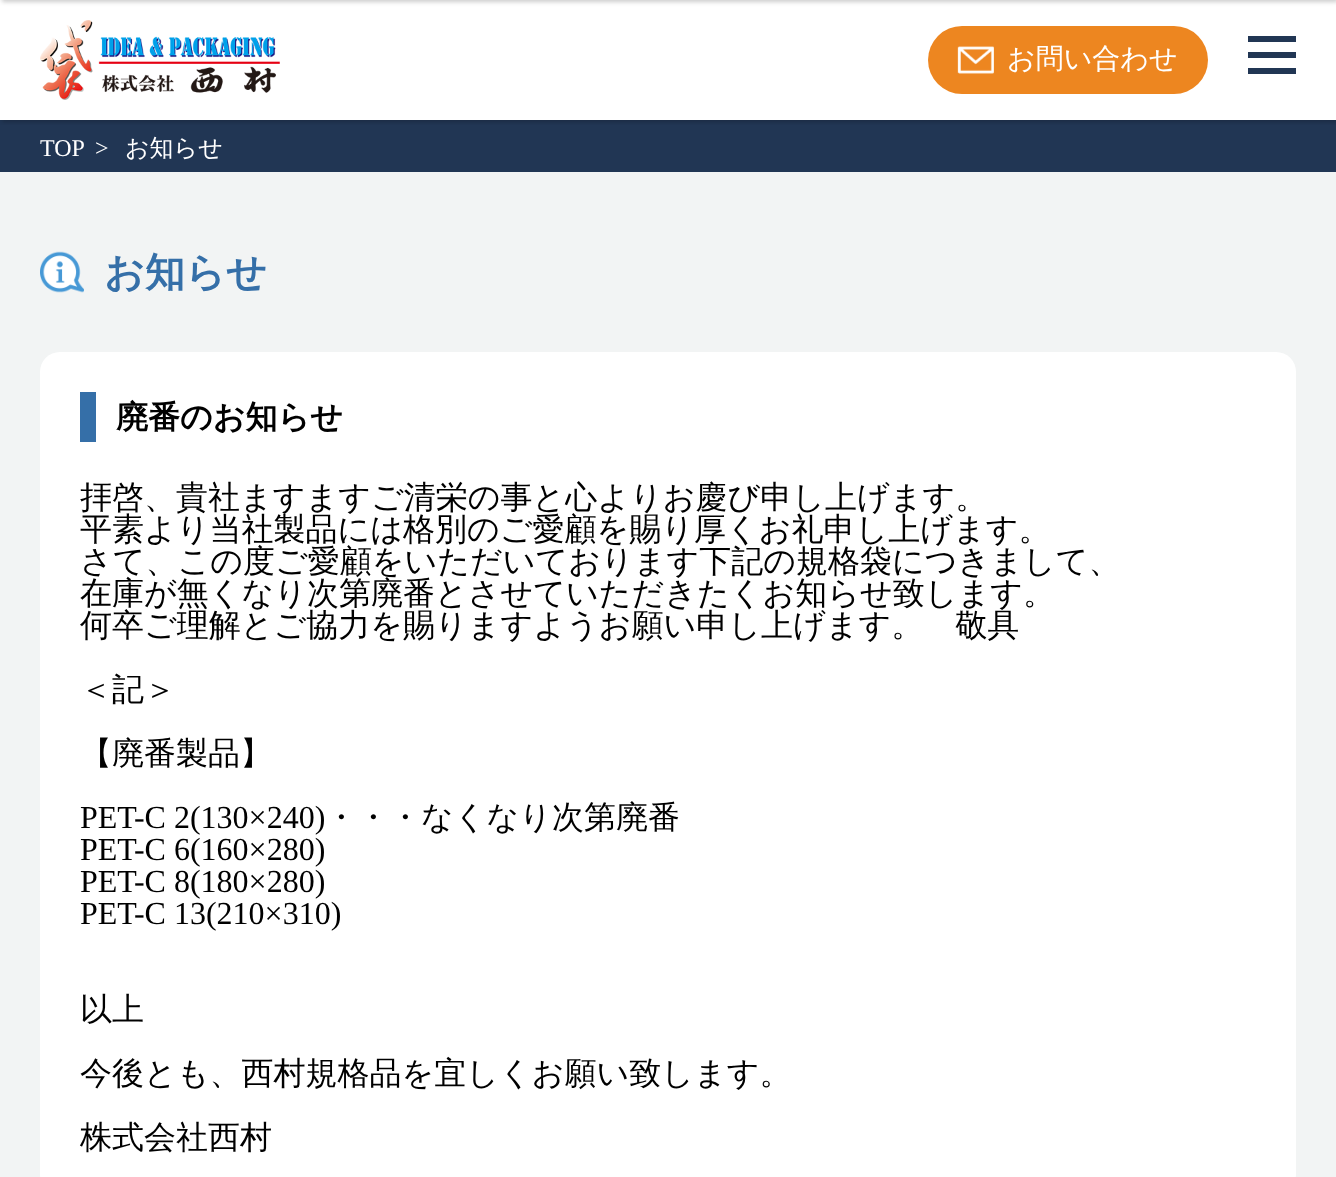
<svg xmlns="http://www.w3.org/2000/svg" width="1336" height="1177">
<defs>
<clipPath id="clip1"><rect x="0" y="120" width="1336" height="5"/></clipPath>
</defs>
<rect width="100%" height="100%" fill="#fff"/>
<rect y="120" width="1336" height="52" fill="#213654"/>
<g clip-path="url(#clip1)">
<rect x="2" y="2" width="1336" height="120" fill="#00000033" filter="blur(2px)"/>
</g>
<rect x="2" y="-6" width="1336" height="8" fill="#00000033" filter="blur(2px)"/>
<image x="40" y="20" width="240" height="80" href="media/1.png"/>
<rect x="928" y="26" width="280" height="68" rx="34" fill="#ed8620"/>
<image x="957" y="46" width="37" height="28" href="media/2.png"/>
<text x="1007" y="68" style="font-family:WenQuanYi Zen Hei;font-size:28px;font-weight:500;fill:#fff">お問い合わせ</text>
<rect x="1248" y="36" width="48" height="6" fill="#213654"/>
<rect x="1248" y="52" width="48" height="6" fill="#213654"/>
<rect x="1248" y="68" width="48" height="6" fill="#213654"/>
<text x="40" y="156" style="font-family:Liberation Serif;font-size:24px;fill:#fff">TOP</text>
<text x="95" y="156" style="font-family:Liberation Serif;font-size:24px;fill:#fff">&gt;</text>
<text x="125" y="156" style="font-family:WenQuanYi Zen Hei;font-size:24px;font-weight:500;fill:#fff">お知らせ</text>
<rect y="172" width="1336" height="1005" fill="#f2f4f4"/>
<image x="40" y="251" width="44" height="42" href="media/3.png"/>
<text x="104" y="286" style="font-family:WenQuanYi Zen Hei;font-size:40px;font-weight:bold;fill:#356fa8">お知らせ</text>
<rect x="40" y="352" width="1256" height="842" rx="20" fill="#fff"/>
<rect x="80" y="392" width="16" height="50" fill="#356fa8"/>
<text x="116" y="428" style="font-family:WenQuanYi Zen Hei;font-size:32px;font-weight:bold;fill:#000">廃番のお知らせ</text>
<text x="80" y="508" style="font-family:WenQuanYi Zen Hei;font-size:32px;font-weight:500;fill:#000">拝啓、貴社ますますご清栄の事と心よりお慶び申し上げます。</text>
<text x="80" y="540" style="font-family:WenQuanYi Zen Hei;font-size:32px;font-weight:500;fill:#000">平素より当社製品には格別のご愛顧を賜り厚くお礼申し上げます。</text>
<text x="80" y="572" style="font-family:WenQuanYi Zen Hei;font-size:32px;font-weight:500;fill:#000">さて、この度ご愛顧をいただいております下記の規格袋につきまして、</text>
<text x="80" y="604" style="font-family:WenQuanYi Zen Hei;font-size:32px;font-weight:500;fill:#000">在庫が無くなり次第廃番とさせていただきたくお知らせ致します。</text>
<text x="80" y="636" style="font-family:WenQuanYi Zen Hei;font-size:32px;font-weight:500;fill:#000">何卒ご理解とご協力を賜りますようお願い申し上げます。　敬具</text>
<text x="80" y="700" style="font-family:WenQuanYi Zen Hei;font-size:32px;font-weight:500;fill:#000">＜記＞</text>
<text x="80" y="764" style="font-family:WenQuanYi Zen Hei;font-size:32px;font-weight:500;fill:#000">【廃番製品】</text>
<text x="80" y="828" style="font-family:Liberation Serif;font-size:32px;fill:#000">PET-C 2(130×240)</text>
<text x="325" y="828" style="font-family:WenQuanYi Zen Hei;font-size:32px;font-weight:500;fill:#000">・・・なくなり次第廃番</text>
<text x="80" y="860" style="font-family:Liberation Serif;font-size:32px;fill:#000">PET-C 6(160×280)</text>
<text x="80" y="892" style="font-family:Liberation Serif;font-size:32px;fill:#000">PET-C 8(180×280)</text>
<text x="80" y="924" style="font-family:Liberation Serif;font-size:32px;fill:#000">PET-C 13(210×310)</text>
<text x="80" y="1020" style="font-family:WenQuanYi Zen Hei;font-size:32px;font-weight:500;fill:#000">以上</text>
<text x="80" y="1084" style="font-family:WenQuanYi Zen Hei;font-size:32px;font-weight:500;fill:#000">今後とも、西村規格品を宜しくお願い致します。</text>
<text x="80" y="1148" style="font-family:WenQuanYi Zen Hei;font-size:32px;font-weight:500;fill:#000">株式会社西村</text>
</svg>
